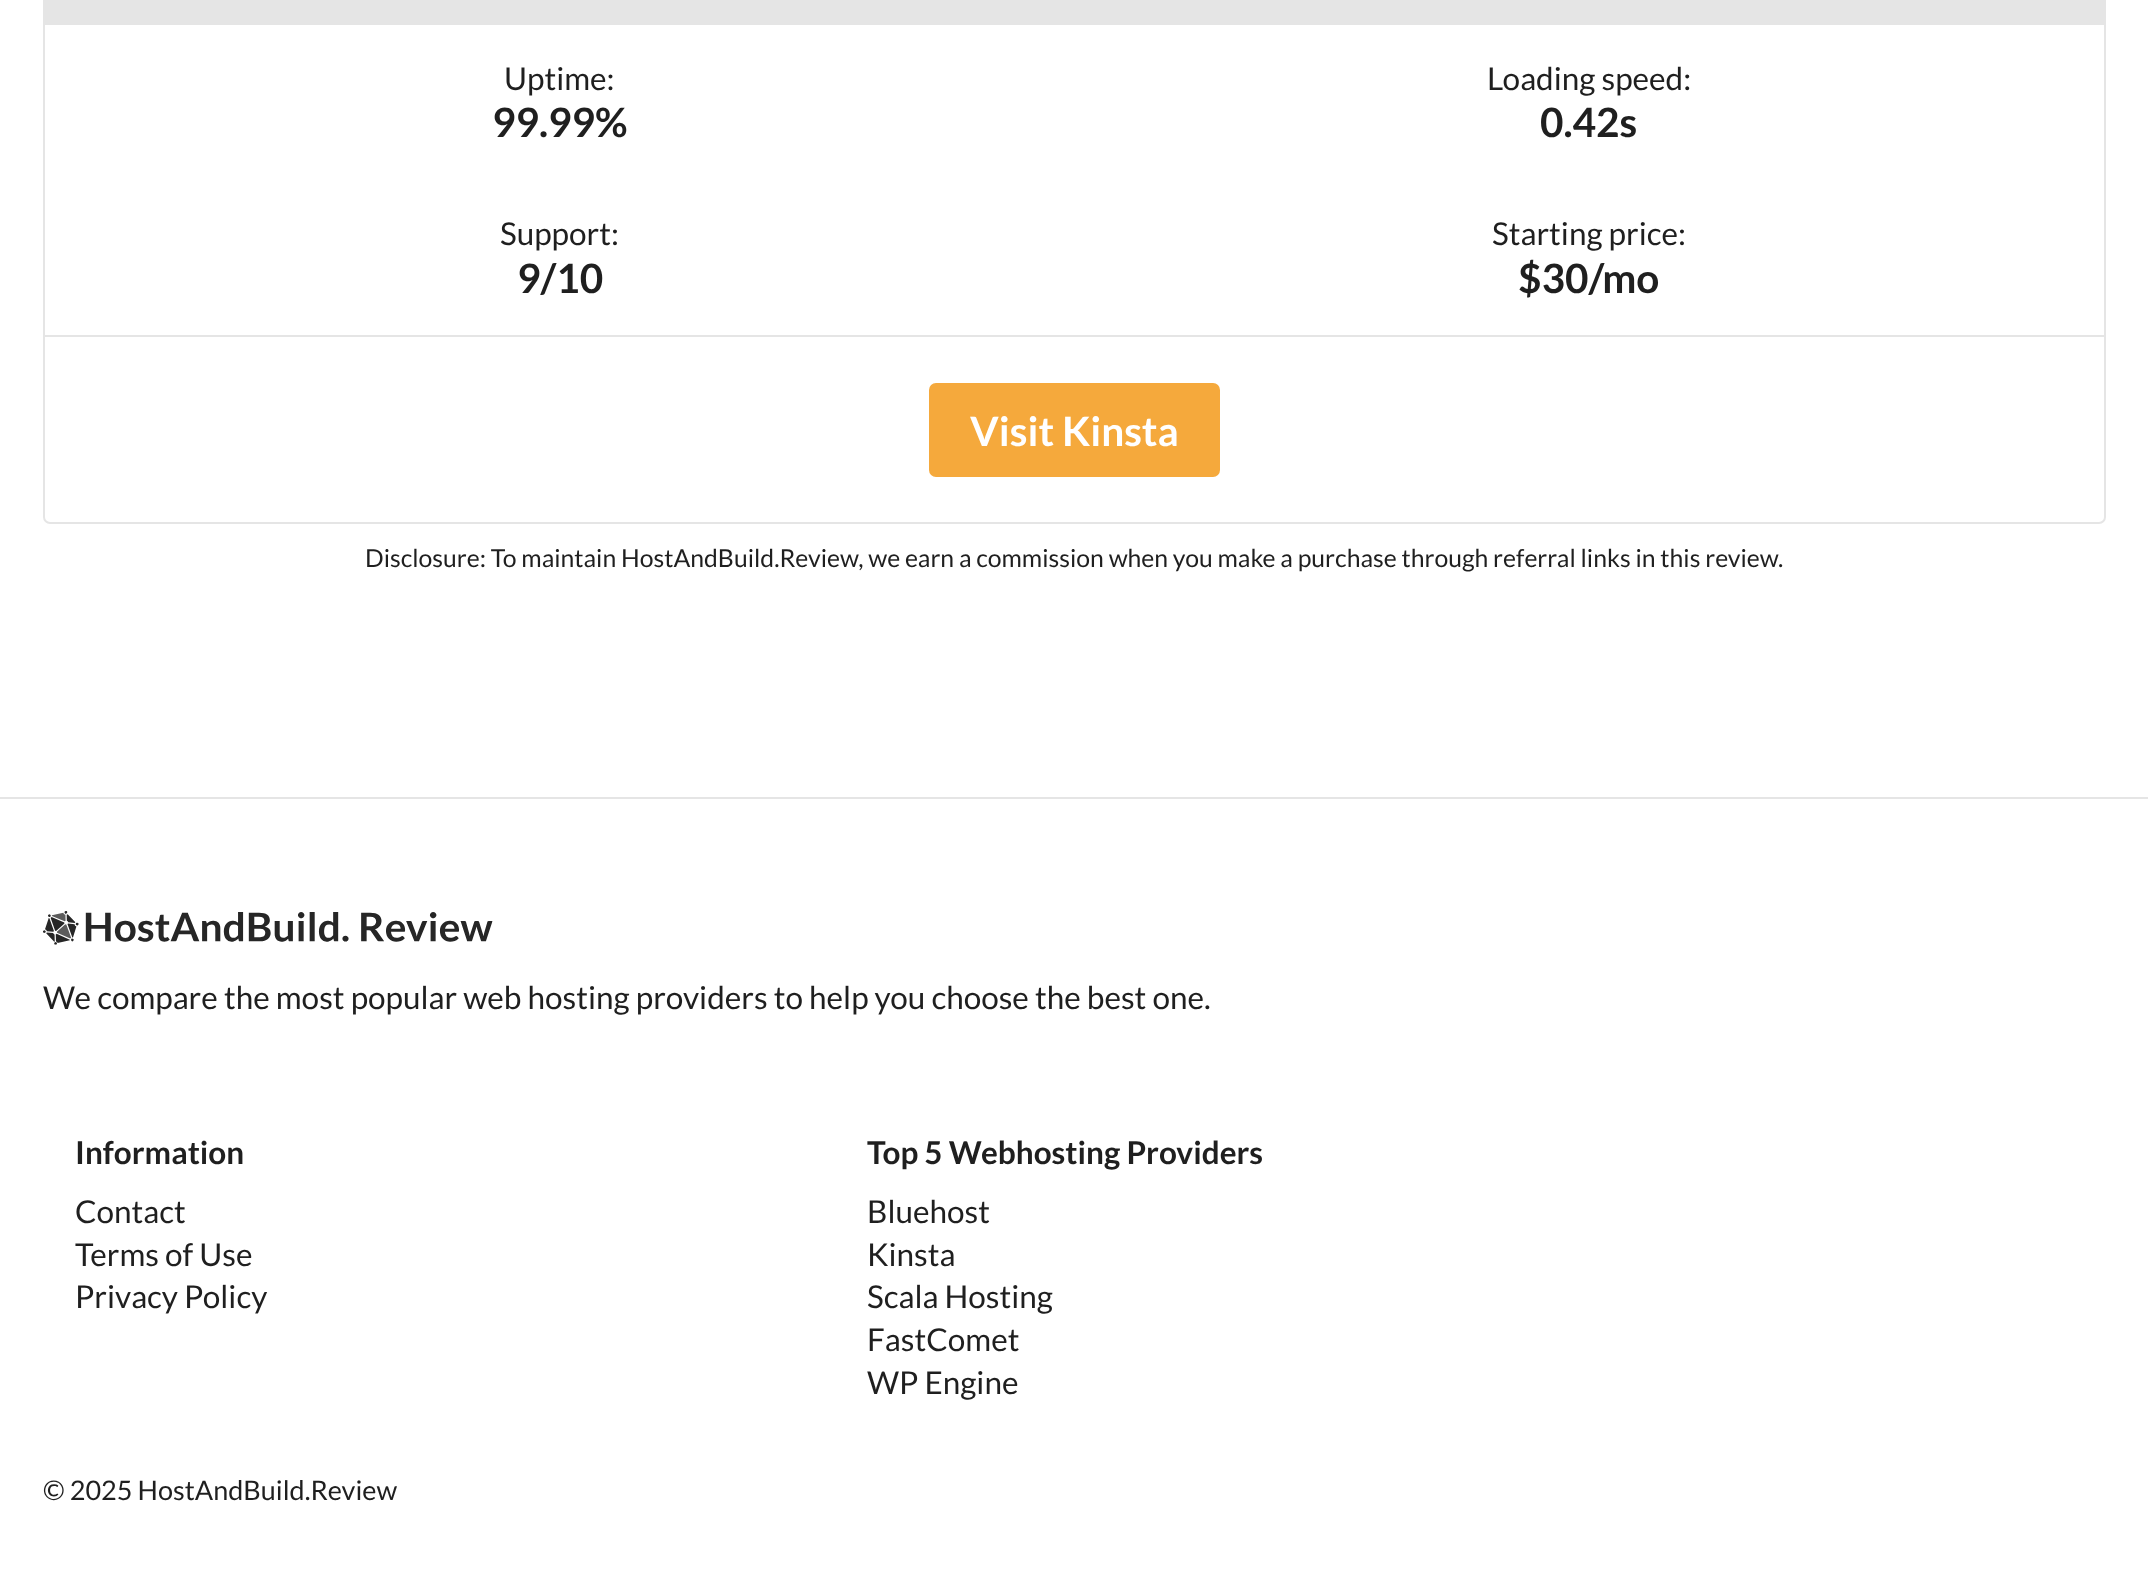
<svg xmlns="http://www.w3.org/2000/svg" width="2148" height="1572">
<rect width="100%" height="100%" fill="#fff"/>
<rect x="44" y="-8" width="2061" height="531" rx="6" fill="none" stroke="#e5e5e5" stroke-width="2"/>
<rect x="45" width="2059" height="25" fill="#e5e5e5"/>
<text x="504" y="90" style="font-family:Lato;font-size:31.5px;fill:#1f1f1f">Uptime:</text>
<text x="492" y="137" style="font-family:Lato;font-size:40.5px;font-weight:bold;fill:#1f1f1f">99.99%</text>
<text x="1487" y="90" style="font-family:Lato;font-size:31.5px;fill:#1f1f1f">Loading speed:</text>
<text x="1540" y="137" style="font-family:Lato;font-size:40.5px;font-weight:bold;fill:#1f1f1f">0.42s</text>
<text x="500" y="245" style="font-family:Lato;font-size:31.5px;fill:#1f1f1f">Support:</text>
<text x="517" y="293" style="font-family:Lato;font-size:40.5px;font-weight:bold;fill:#1f1f1f">9/10</text>
<text x="1492" y="245" style="font-family:Lato;font-size:31.5px;fill:#1f1f1f">Starting price:</text>
<text x="1518" y="293" style="font-family:Lato;font-size:40.5px;font-weight:bold;fill:#1f1f1f">$30/mo</text>
<rect x="45" y="335" width="2059" height="2" fill="#e5e5e5"/>
<rect x="929" y="383" width="291" height="94" rx="7" fill="#f5a93c"/>
<text x="970" y="446" style="font-family:Lato;font-size:40.5px;font-weight:bold;fill:#fff">Visit Kinsta</text>
<text x="365" y="567" style="font-family:Lato;font-size:24.75px;fill:#1f1f1f">Disclosure: To maintain HostAndBuild.Review, we earn a commission when you make a purchase through referral links in this review.</text>
<rect y="797" width="2148" height="2" fill="#e5e5e5"/>
<image x="43" y="911" width="450" height="34" href="media/1.png"/>
<text x="43" y="1009" style="font-family:Lato;font-size:31.5px;fill:#1f1f1f">We compare the most popular web hosting providers to help you choose the best one.</text>
<text x="75" y="1164" style="font-family:Lato;font-size:31.5px;font-weight:bold;fill:#1f1f1f">Information</text>
<text x="75" y="1223" style="font-family:Lato;font-size:31.5px;fill:#1f1f1f">Contact</text>
<text x="75" y="1266" style="font-family:Lato;font-size:31.5px;fill:#1f1f1f">Terms of Use</text>
<text x="75" y="1308" style="font-family:Lato;font-size:31.5px;fill:#1f1f1f">Privacy Policy</text>
<text x="867" y="1164" style="font-family:Lato;font-size:31.5px;font-weight:bold;fill:#1f1f1f">Top 5 Webhosting Providers</text>
<text x="867" y="1223" style="font-family:Lato;font-size:31.5px;fill:#1f1f1f">Bluehost</text>
<text x="867" y="1266" style="font-family:Lato;font-size:31.5px;fill:#1f1f1f">Kinsta</text>
<text x="867" y="1308" style="font-family:Lato;font-size:31.5px;fill:#1f1f1f">Scala Hosting</text>
<text x="867" y="1351" style="font-family:Lato;font-size:31.5px;fill:#1f1f1f">FastComet</text>
<text x="867" y="1394" style="font-family:Lato;font-size:31.5px;fill:#1f1f1f">WP Engine</text>
<text x="43" y="1500" style="font-family:Lato;font-size:27px;fill:#1f1f1f">© 2025 HostAndBuild.Review</text>
</svg>
